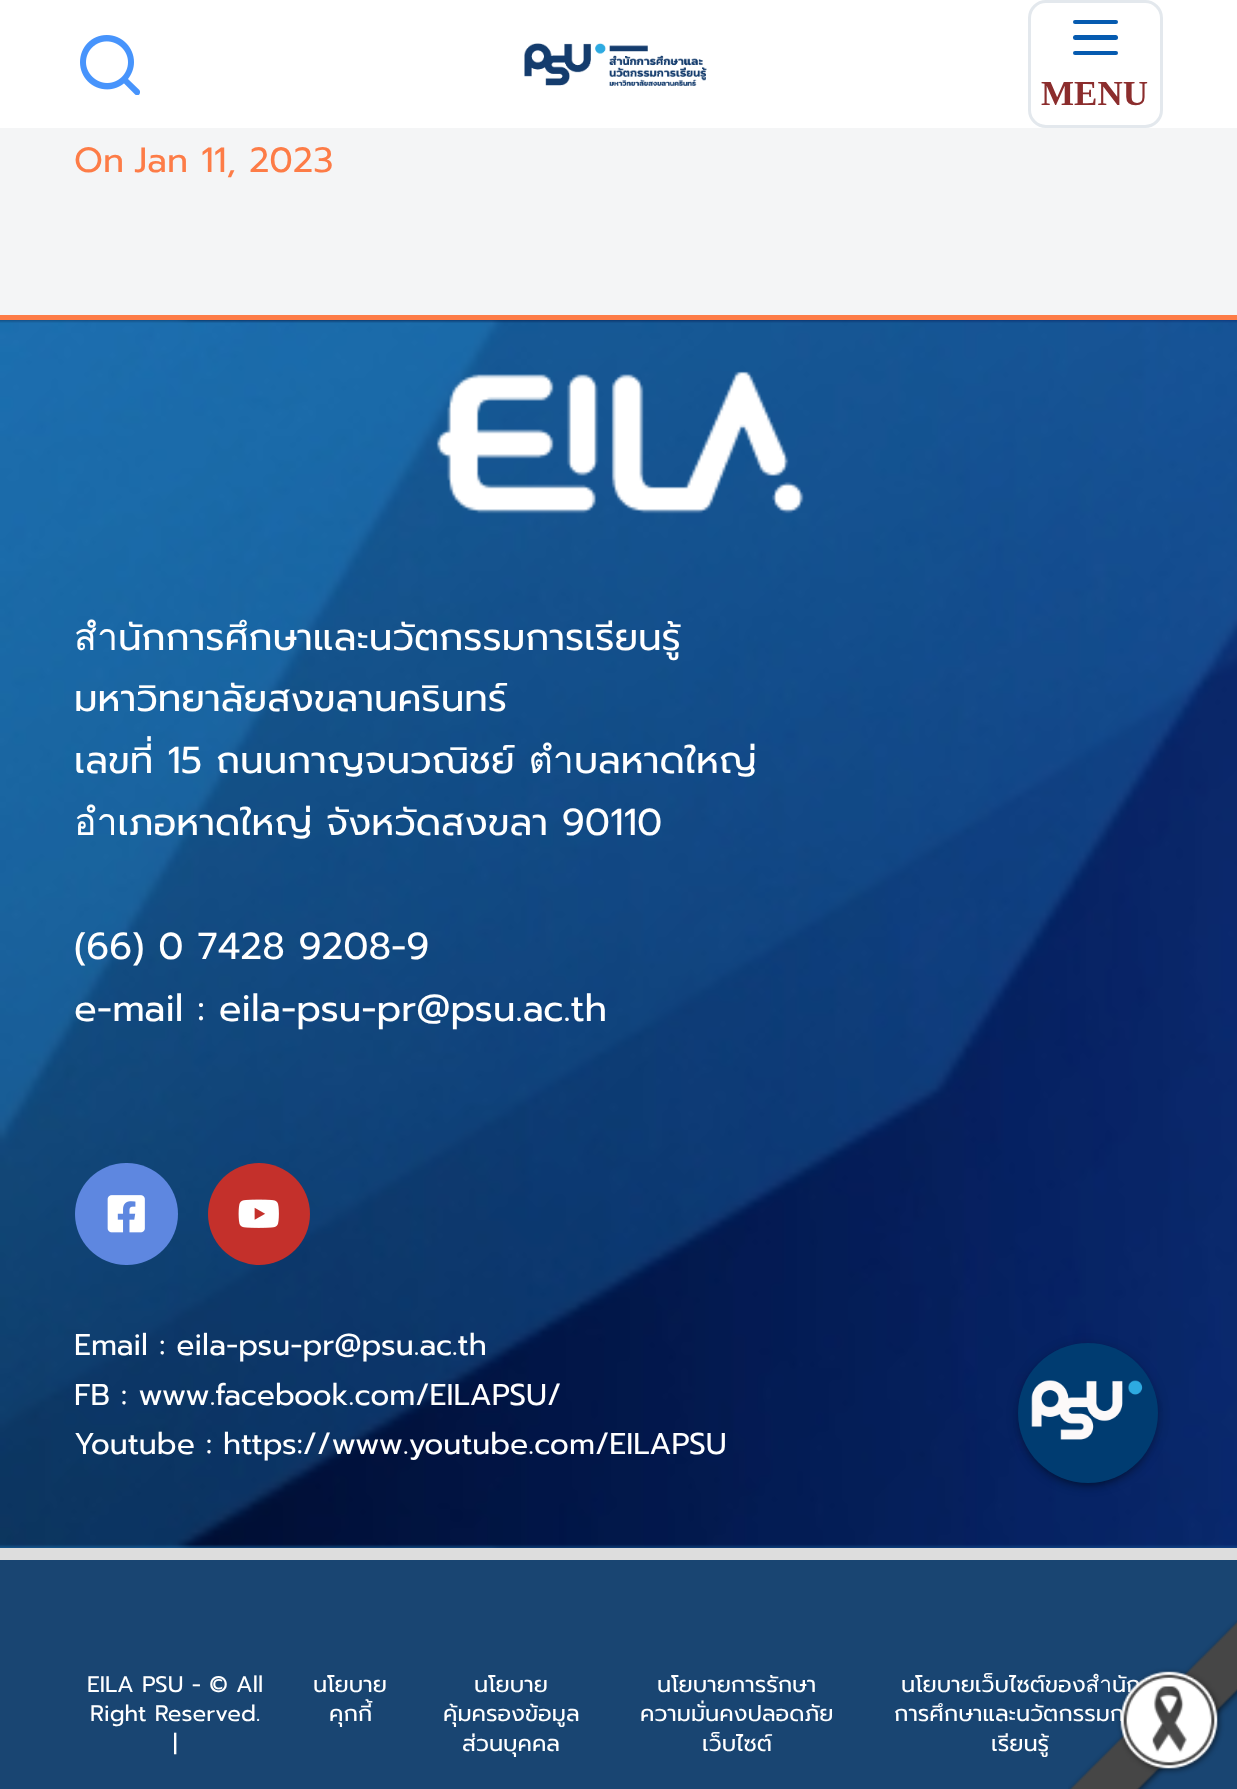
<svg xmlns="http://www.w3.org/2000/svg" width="1237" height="1789">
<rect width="100%" height="100%" fill="#f4f5f6"/>
<rect width="1237" height="128" fill="#fff"/>
<image x="80" y="35" width="60" height="60" href="media/1.png"/>
<image x="524" y="43" width="183" height="43" href="media/2.png"/>
<rect x="1029.5" y="1.5" width="132" height="125" rx="16.5" fill="none" stroke="#e3e8ed" stroke-width="3"/>
<rect x="1073" y="20" width="45" height="4" rx="2" fill="#065bb0"/>
<rect x="1073" y="35" width="45" height="5" rx="2.5" fill="#065bb0"/>
<rect x="1073" y="51" width="45" height="4" rx="2" fill="#065bb0"/>
<text x="1041" y="105" style="font-family:Liberation Serif;font-size:35px;font-weight:bold;fill:#8b2d2d">MENU</text>
<text x="74" y="172" style="font-family:Prompt;font-size:35px;fill:#fd7c47">On</text>
<text x="134" y="172" style="font-family:Prompt;font-size:35px;fill:#fd7c47">Jan 11, 2023</text>
<image x="0" y="320" width="1237" height="1228" href="media/3.png"/>
<rect y="315" width="1237" height="5" fill="#fd7c47"/>
<rect y="1548" width="1237" height="12" fill="#ddd"/>
<image x="436" y="371" width="368" height="143" href="media/4.png"/>
<text x="74" y="650" style="font-family:Prompt;font-size:37.5px;fill:#fff">สำนักการศึกษาและนวัตกรรมการเรียนรู้</text>
<text x="74" y="711" style="font-family:Prompt;font-size:37.5px;fill:#fff">มหาวิทยาลัยสงขลานครินทร์</text>
<text x="74" y="773" style="font-family:Prompt;font-size:37.5px;fill:#fff">เลขที่ 15 ถนนกาญจนวณิชย์ ตำบลหาดใหญ่</text>
<text x="74" y="835" style="font-family:Prompt;font-size:37.5px;fill:#fff">อำเภอหาดใหญ่ จังหวัดสงขลา 90110</text>
<text x="74" y="959" style="font-family:Prompt;font-size:37.5px;fill:#fff">(66) 0 7428 9208-9</text>
<text x="74" y="1021" style="font-family:Prompt;font-size:37.5px;fill:#fff">e-mail : eila-psu-pr@psu.ac.th</text>
<rect x="75" y="1163" width="103" height="102" rx="51" fill="#5e87e0"/>
<image x="107" y="1195" width="38" height="38" href="media/5.png"/>
<circle cx="259" cy="1214" r="51" fill="#c4302b"/>
<image x="238" y="1199" width="41" height="29" href="media/6.png"/>
<text x="74" y="1355" style="font-family:Prompt;font-size:30px;fill:#fff">Email : eila-psu-pr@psu.ac.th</text>
<text x="74" y="1405" style="font-family:Prompt;font-size:30px;fill:#fff">FB : www.facebook.com/EILAPSU/</text>
<text x="74" y="1454" style="font-family:Prompt;font-size:30px;fill:#fff">Youtube : https://www.youtube.com/EILAPSU</text>
<rect y="1560" width="1237" height="229" fill="#194572"/>
<text x="87" y="1692" style="font-family:Prompt;font-size:22.5px;fill:#fff">EILA PSU - © All</text>
<text x="90" y="1721" style="font-family:Prompt;font-size:22.5px;fill:#fff">Right Reserved.</text>
<text x="173" y="1751" style="font-family:Prompt;font-size:22.5px;fill:#fff">|</text>
<text x="313" y="1692" style="font-family:Prompt;font-size:22.5px;fill:#fff">นโยบาย</text>
<text x="329" y="1721" style="font-family:Prompt;font-size:22.5px;fill:#fff">คุกกี้</text>
<text x="474" y="1692" style="font-family:Prompt;font-size:22.5px;fill:#fff">นโยบาย</text>
<text x="443" y="1721" style="font-family:Prompt;font-size:22.5px;fill:#fff">คุ้มครองข้อมูล</text>
<text x="462" y="1751" style="font-family:Prompt;font-size:22.5px;fill:#fff">ส่วนบุคคล</text>
<text x="657" y="1692" style="font-family:Prompt;font-size:22.5px;fill:#fff">นโยบายการรักษา</text>
<text x="640" y="1721" style="font-family:Prompt;font-size:22.5px;fill:#fff">ความมั่นคงปลอดภัย</text>
<text x="702" y="1751" style="font-family:Prompt;font-size:22.5px;fill:#fff">เว็บไซต์</text>
<text x="901" y="1692" style="font-family:Prompt;font-size:22.5px;fill:#fff">นโยบายเว็บไซต์ของสำนัก</text>
<text x="894" y="1721" style="font-family:Prompt;font-size:22.5px;fill:#fff">การศึกษาและนวัตกรรมก</text>
<text x="991" y="1751" style="font-family:Prompt;font-size:22.5px;fill:#fff">เรียนรู้</text>
<rect x="1018" y="1345" width="140" height="140" rx="70" fill="#00000033" filter="blur(6px)"/>
<rect x="1023" y="1355" width="130" height="130" rx="65" fill="#0000001f" filter="blur(1px)"/>
<rect x="1018" y="1348" width="140" height="140" rx="70" fill="#00000024" filter="blur(2.5px)"/>
<circle cx="1088" cy="1413" r="70" fill="#003c71"/>
<image x="1031" y="1380" width="112" height="60" href="media/7.png"/>
<image x="1068" y="1620" width="169" height="169" href="media/8.png"/>
</svg>
